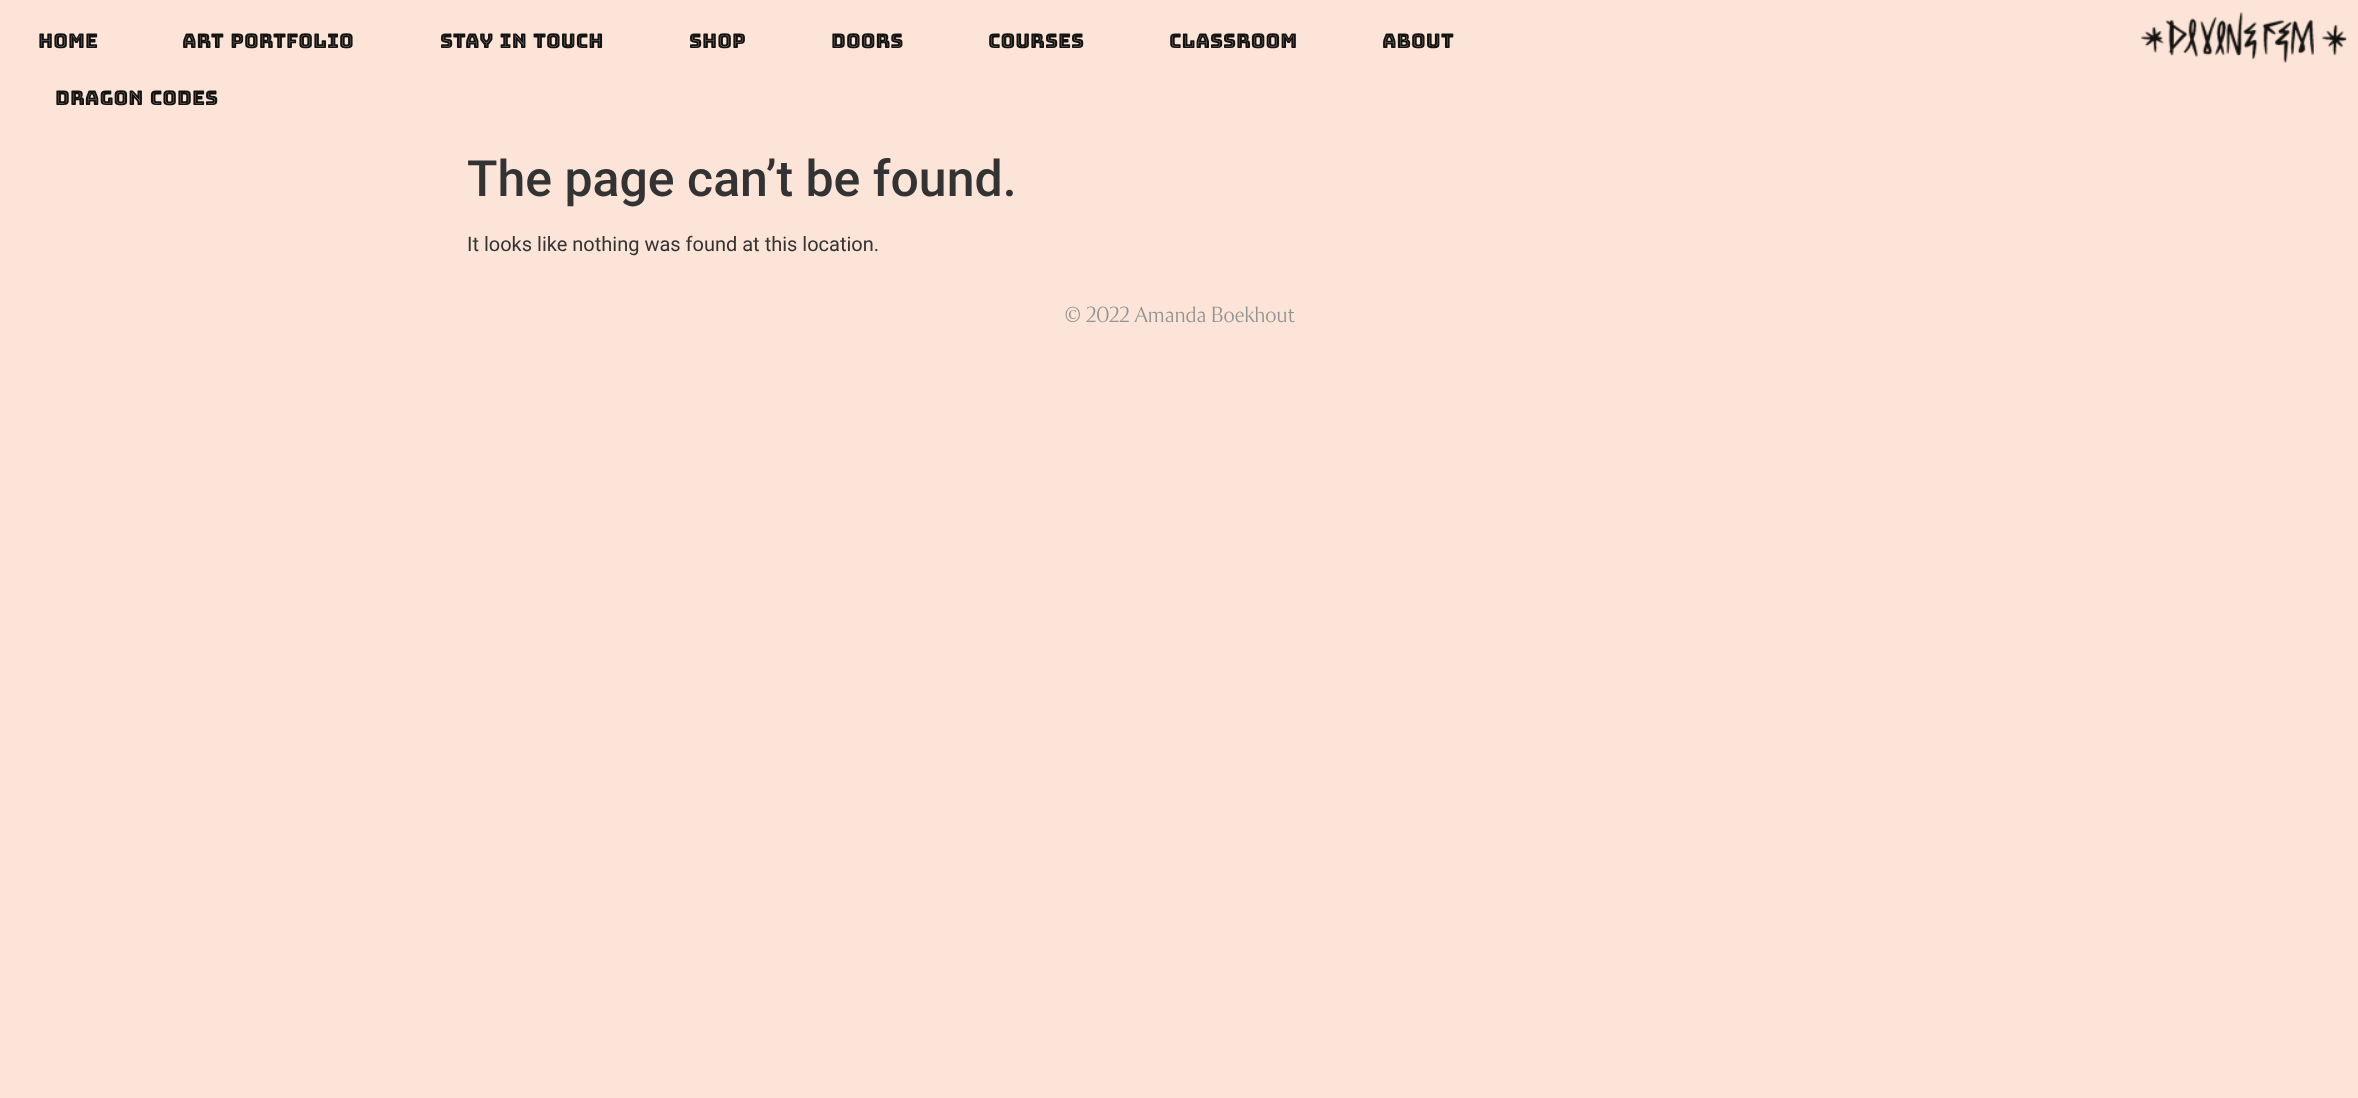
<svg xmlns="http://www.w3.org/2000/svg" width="2358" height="1098">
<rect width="100%" height="100%" fill="#fce4d8"/>
<text x="38" y="48" style="font-family:Bungee Inline;font-size:20px;fill:#141311">Home</text>
<text x="182" y="48" word-spacing="2" style="font-family:Bungee Inline;font-size:20px;fill:#141311">Art Portfolio</text>
<text x="440" y="48" word-spacing="2" style="font-family:Bungee Inline;font-size:20px;fill:#141311">Stay In Touch</text>
<text x="689" y="48" style="font-family:Bungee Inline;font-size:20px;fill:#141311">Shop</text>
<text x="831" y="48" style="font-family:Bungee Inline;font-size:20px;fill:#141311">doors</text>
<text x="988" y="48" style="font-family:Bungee Inline;font-size:20px;fill:#141311">Courses</text>
<text x="1169" y="48" style="font-family:Bungee Inline;font-size:20px;fill:#141311">Classroom</text>
<text x="1382" y="48" style="font-family:Bungee Inline;font-size:20px;fill:#141311">About</text>
<text x="55" y="105" word-spacing="2" style="font-family:Bungee Inline;font-size:20px;fill:#141311">DRAGON CODES</text>
<image x="2141" y="12" width="206" height="51" href="media/1.png"/>
<text x="467" y="196" style="font-family:Roboto;font-size:50px;font-weight:500;fill:#333">The page can’t be found.</text>
<text x="467" y="251" style="font-family:Roboto;font-size:20px;fill:#333">It looks like nothing was found at this location.</text>
<text x="1064" y="322" style="font-family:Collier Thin;font-size:24px;font-weight:100;fill:#929292">© 2022 Amanda Boekhout</text>
</svg>
